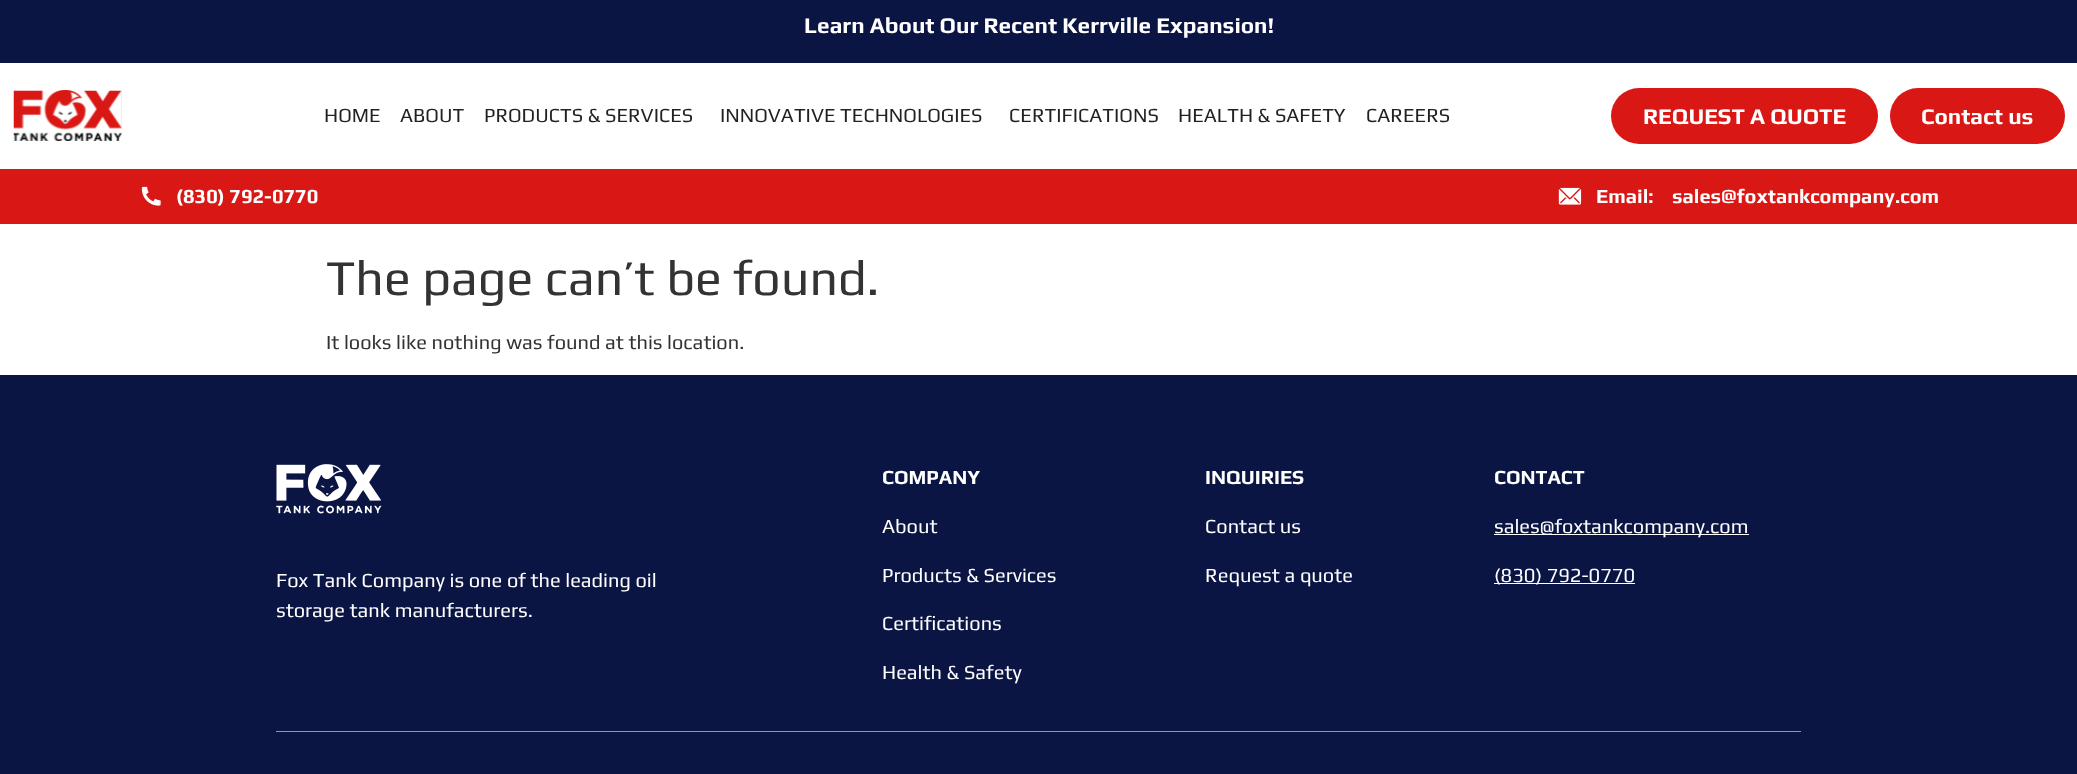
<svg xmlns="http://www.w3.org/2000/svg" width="2077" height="774">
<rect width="100%" height="100%" fill="#fff"/>
<rect width="2077" height="63" fill="#0b1543"/>
<text x="804" y="33" style="font-family:Play;font-size:22.5px;font-weight:bold;fill:#fff">Learn About Our Recent Kerrville Expansion!</text>
<image x="13" y="90" width="109" height="51" href="media/1.png"/>
<text x="324" y="122" style="font-family:Play;font-size:20px;fill:#1f2124">HOME</text>
<text x="400" y="122" style="font-family:Play;font-size:20px;fill:#1f2124">ABOUT</text>
<text x="484" y="122" style="font-family:Play;font-size:20px;fill:#1f2124">PRODUCTS &amp; SERVICES</text>
<text x="720" y="122" style="font-family:Play;font-size:20px;fill:#1f2124">INNOVATIVE TECHNOLOGIES</text>
<text x="1009" y="122" style="font-family:Play;font-size:20px;fill:#1f2124">CERTIFICATIONS</text>
<text x="1178" y="122" style="font-family:Play;font-size:20px;fill:#1f2124">HEALTH &amp; SAFETY</text>
<text x="1366" y="122" style="font-family:Play;font-size:20px;fill:#1f2124">CAREERS</text>
<rect x="1611" y="88" width="267" height="56" rx="28" fill="#d91715"/>
<text x="1643" y="124" style="font-family:Play;font-size:22.5px;font-weight:bold;fill:#fff">REQUEST A QUOTE</text>
<rect x="1890" y="88" width="175" height="56" rx="28" fill="#d91715"/>
<text x="1921" y="124" style="font-family:Play;font-size:22.5px;font-weight:bold;fill:#fff">Contact us</text>
<rect y="169" width="2077" height="55" fill="#d91715"/>
<image x="141" y="186" width="20" height="20" href="media/2.png"/>
<text x="176" y="203" style="font-family:Play;font-size:20px;font-weight:bold;fill:#fff">(830) 792-0770</text>
<image x="1558" y="187" width="24" height="18" href="media/3.png"/>
<text x="1596" y="203" style="font-family:Play;font-size:20px;font-weight:bold;fill:#fff">Email:</text>
<text x="1672" y="203" style="font-family:Play;font-size:20px;font-weight:bold;fill:#fff">sales@foxtankcompany.com</text>
<text x="326" y="295" style="font-family:Play;font-size:50px;fill:#333">The page can’t be found.</text>
<text x="326" y="349" style="font-family:Play;font-size:20px;fill:#333">It looks like nothing was found at this location.</text>
<rect y="375" width="2077" height="399" fill="#0b1543"/>
<image x="276" y="464" width="106" height="50" href="media/4.png"/>
<text x="276" y="587" style="font-family:Play;font-size:20px;fill:#fff">Fox Tank Company is one of the leading oil</text>
<text x="276" y="617" style="font-family:Play;font-size:20px;fill:#fff">storage tank manufacturers.</text>
<text x="882" y="484" style="font-family:Play;font-size:20px;font-weight:bold;fill:#fff">COMPANY</text>
<text x="882" y="533" style="font-family:Play;font-size:20px;fill:#fff">About</text>
<text x="882" y="582" style="font-family:Play;font-size:20px;fill:#fff">Products &amp; Services</text>
<text x="882" y="630" style="font-family:Play;font-size:20px;fill:#fff">Certifications</text>
<text x="882" y="679" style="font-family:Play;font-size:20px;fill:#fff">Health &amp; Safety</text>
<text x="1205" y="484" style="font-family:Play;font-size:20px;font-weight:bold;fill:#fff">INQUIRIES</text>
<text x="1205" y="533" style="font-family:Play;font-size:20px;fill:#fff">Contact us</text>
<text x="1205" y="582" style="font-family:Play;font-size:20px;fill:#fff">Request a quote</text>
<text x="1494" y="484" style="font-family:Play;font-size:20px;font-weight:bold;fill:#fff">CONTACT</text>
<rect x="1494" y="534" width="255" height="1" fill="#fff"/>
<text x="1494" y="533" style="font-family:Play;font-size:20px;fill:#fff">sales@foxtankcompany.com</text>
<rect x="1494" y="583" width="141" height="1" fill="#fff"/>
<text x="1494" y="582" style="font-family:Play;font-size:20px;fill:#fff">(830) 792-0770</text>
<rect x="276" y="731" width="1525" height="1" fill="#9196aa"/>
</svg>
